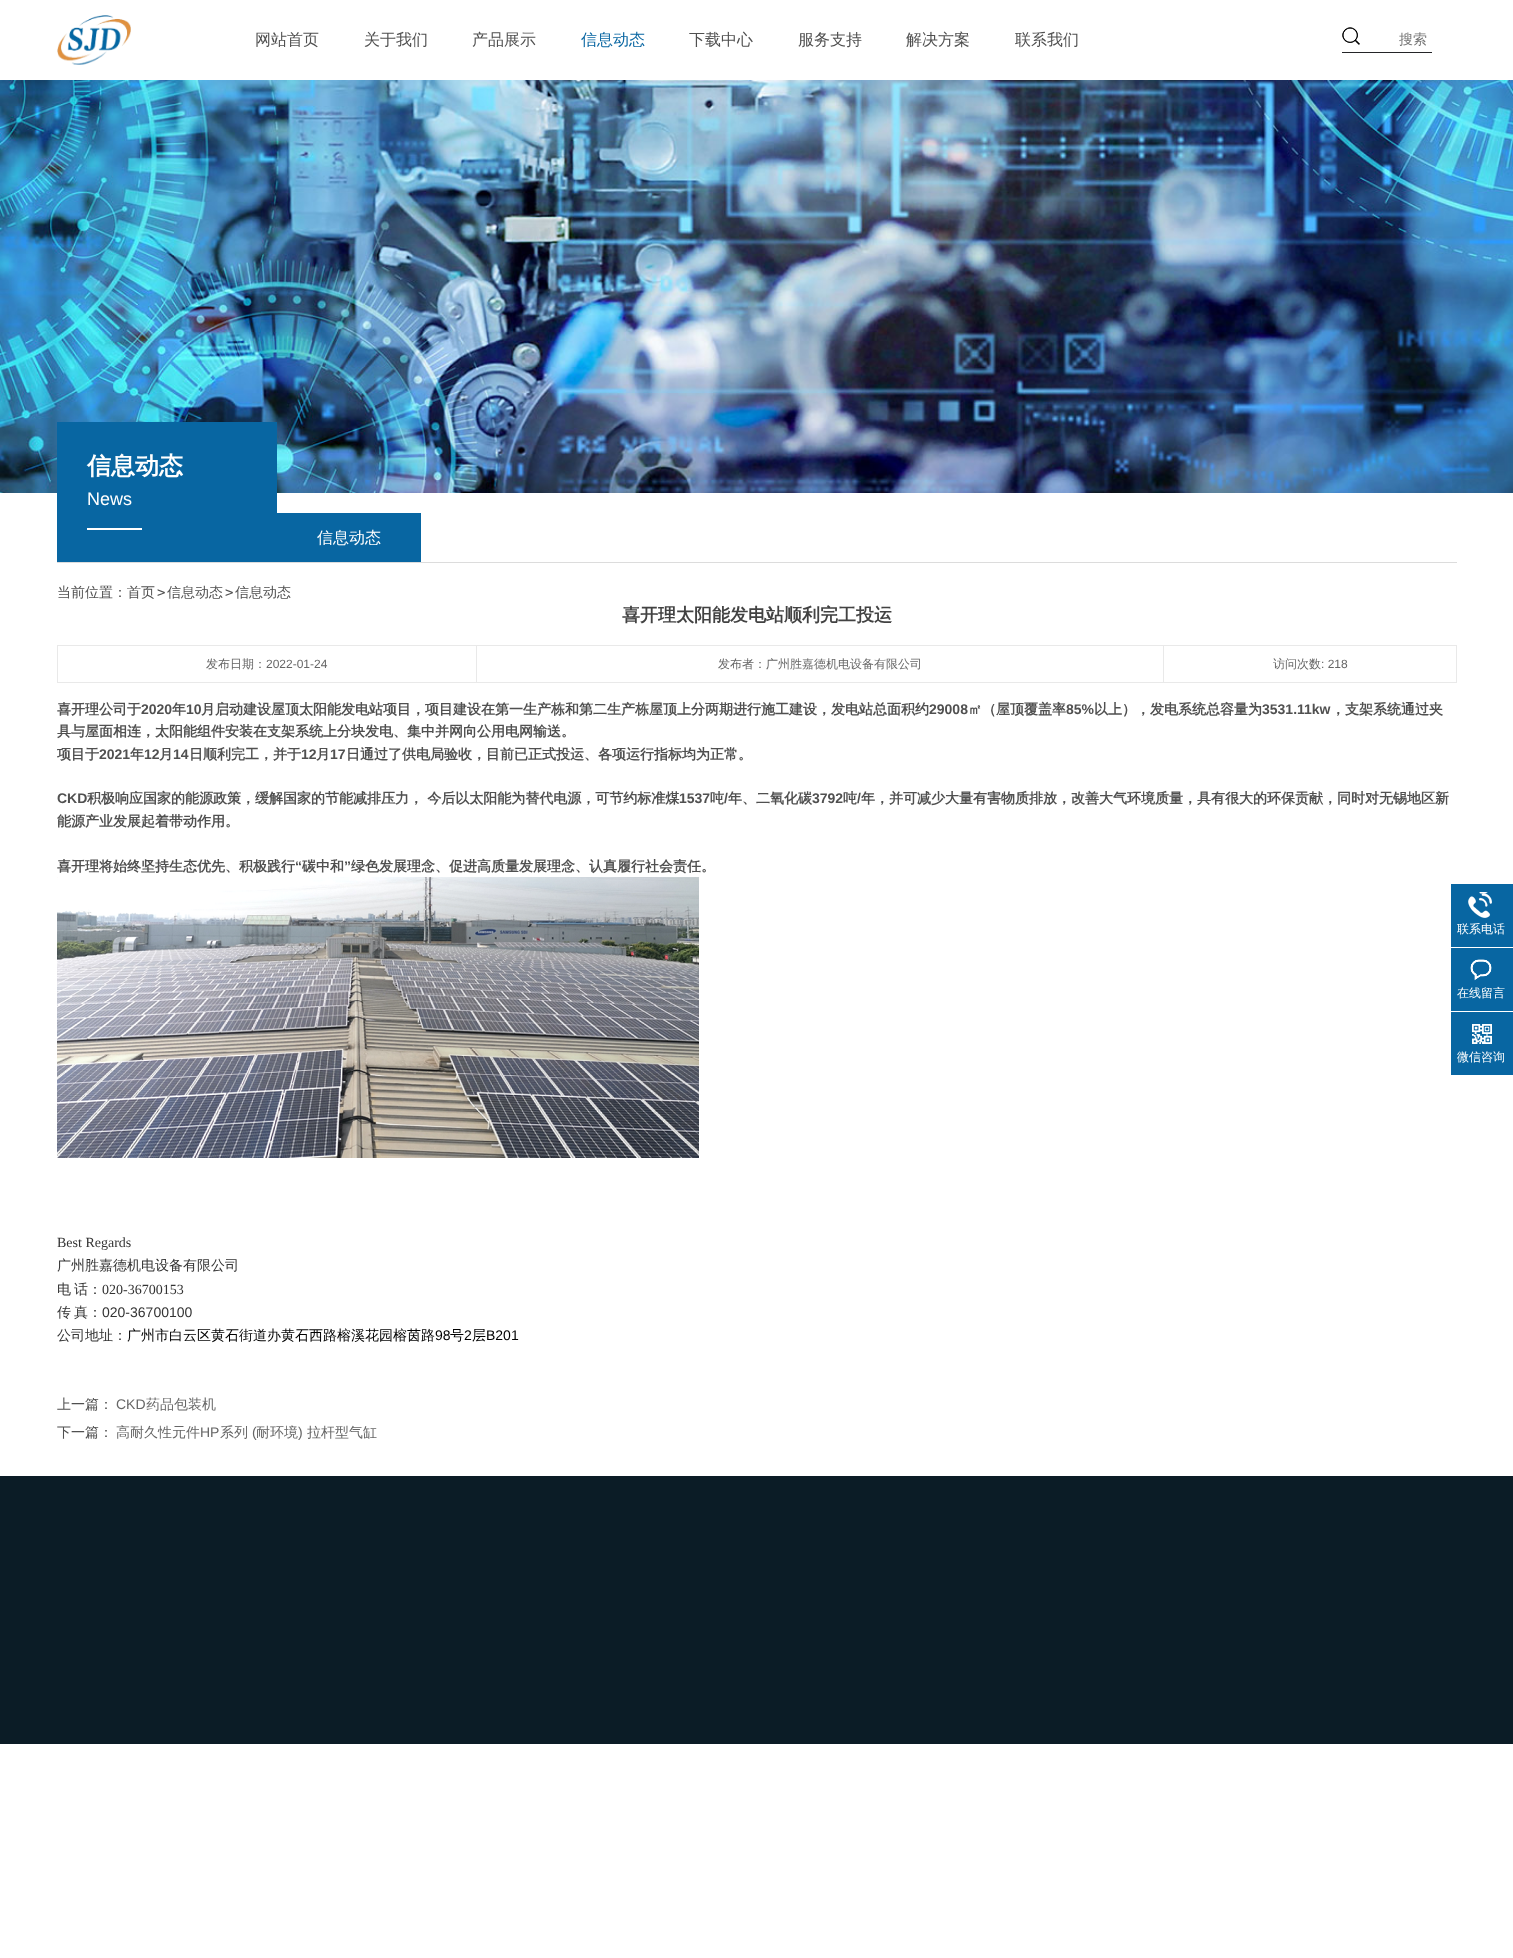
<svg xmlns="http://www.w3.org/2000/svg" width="1513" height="1958">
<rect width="100%" height="100%" fill="#fff"/>
<image x="57" y="15" width="74" height="50" href="media/1.png"/>
<text x="255" y="45" style="font-family:WenQuanYi Zen Hei;font-size:16px;font-weight:500;fill:#505050">网站首页</text>
<text x="364" y="45" style="font-family:WenQuanYi Zen Hei;font-size:16px;font-weight:500;fill:#505050">关于我们</text>
<text x="472" y="45" style="font-family:WenQuanYi Zen Hei;font-size:16px;font-weight:500;fill:#505050">产品展示</text>
<text x="581" y="45" style="font-family:WenQuanYi Zen Hei;font-size:16px;font-weight:500;fill:#0966a2">信息动态</text>
<text x="689" y="45" style="font-family:WenQuanYi Zen Hei;font-size:16px;font-weight:500;fill:#505050">下载中心</text>
<text x="798" y="45" style="font-family:WenQuanYi Zen Hei;font-size:16px;font-weight:500;fill:#505050">服务支持</text>
<text x="906" y="45" style="font-family:WenQuanYi Zen Hei;font-size:16px;font-weight:500;fill:#505050">解决方案</text>
<text x="1015" y="45" style="font-family:WenQuanYi Zen Hei;font-size:16px;font-weight:500;fill:#505050">联系我们</text>
<rect x="1342" y="52" width="90" height="1" fill="#242528"/>
<image x="1342" y="27" width="18" height="18" href="media/2.png"/>
<text x="1399" y="44" style="font-family:WenQuanYi Zen Hei;font-size:14px;font-weight:500;fill:#757575">搜索</text>
<image x="0" y="80" width="1513" height="413" href="media/3.png"/>
<rect x="57" y="562" width="1400" height="1" fill="#dcdcdc"/>
<rect x="57" y="422" width="220" height="140" fill="#0866a2"/>
<text x="87" y="474" style="font-family:WenQuanYi Zen Hei;font-size:24px;font-weight:bold;fill:#fff">信息动态</text>
<text x="87" y="505" style="font-family:Liberation Sans;font-size:18px;fill:#fff">News</text>
<rect x="87" y="528" width="55" height="2" fill="#fff"/>
<rect x="277" y="513" width="144" height="49" fill="#0866a2"/>
<text x="317" y="543" style="font-family:WenQuanYi Zen Hei;font-size:16px;font-weight:500;fill:#fff">信息动态</text>
<text x="57" y="597" style="font-family:WenQuanYi Zen Hei;font-size:14px;font-weight:500;fill:#505050">当前位置：首页</text>
<text x="157" y="597" style="font-family:DejaVu Sans Mono;font-size:14px;fill:#505050">&gt;</text>
<text x="167" y="597" style="font-family:WenQuanYi Zen Hei;font-size:14px;font-weight:500;fill:#505050">信息动态</text>
<text x="225" y="597" style="font-family:DejaVu Sans Mono;font-size:14px;fill:#505050">&gt;</text>
<text x="235" y="597" style="font-family:WenQuanYi Zen Hei;font-size:14px;font-weight:500;fill:#505050">信息动态</text>
<text x="622" y="621" style="font-family:WenQuanYi Zen Hei;font-size:18px;font-weight:bold;fill:#424242">喜开理太阳能发电站顺利完工投运</text>
<rect x="1163" y="645" width="294" height="1" fill="#e9e9e9"/>
<rect x="1456" y="645" width="1" height="38" fill="#e9e9e9"/>
<rect x="1163" y="682" width="294" height="1" fill="#e9e9e9"/>
<rect x="1163" y="645" width="1" height="38" fill="#e9e9e9"/>
<rect x="476" y="645" width="688" height="1" fill="#e9e9e9"/>
<rect x="476" y="682" width="688" height="1" fill="#e9e9e9"/>
<rect x="476" y="645" width="1" height="38" fill="#e9e9e9"/>
<rect x="57" y="645" width="420" height="1" fill="#e9e9e9"/>
<rect x="57" y="682" width="420" height="1" fill="#e9e9e9"/>
<rect x="57" y="645" width="1" height="38" fill="#e9e9e9"/>
<text x="206" y="668" style="font-family:WenQuanYi Zen Hei;font-size:12px;font-weight:500;fill:#666">发布日期：</text>
<text x="266" y="668" style="font-family:Liberation Sans;font-size:12px;fill:#666">2022-01-24</text>
<text x="718" y="668" style="font-family:WenQuanYi Zen Hei;font-size:12px;font-weight:500;fill:#666">发布者：广州胜嘉德机电设备有限公司</text>
<text x="1273" y="668" style="font-family:WenQuanYi Zen Hei;font-size:12px;font-weight:500;fill:#666">访问次数</text>
<text x="1321" y="668" style="font-family:Liberation Sans;font-size:12px;fill:#666">: 218</text>
<text x="57" y="714" style="font-family:WenQuanYi Zen Hei;font-size:14px;font-weight:bold;fill:#505050">喜开理公司于</text>
<text x="141" y="714" style="font-family:Liberation Sans;font-size:14px;font-weight:bold;fill:#505050">2020</text>
<text x="172" y="714" style="font-family:WenQuanYi Zen Hei;font-size:14px;font-weight:bold;fill:#505050">年</text>
<text x="186" y="714" style="font-family:Liberation Sans;font-size:14px;font-weight:bold;fill:#505050">10</text>
<text x="201" y="714" style="font-family:WenQuanYi Zen Hei;font-size:14px;font-weight:bold;fill:#505050">月启动建设屋顶太阳能发电站项目，项目建设在第一生产栋和第二生产栋屋顶上分两期进行施工建设，发电站总面积约</text>
<text x="929" y="714" style="font-family:Liberation Sans;font-size:14px;font-weight:bold;fill:#505050">29008</text>
<text x="968" y="714" style="font-family:WenQuanYi Zen Hei;font-size:14px;font-weight:bold;fill:#505050">㎡（屋顶覆盖率</text>
<text x="1066" y="714" style="font-family:Liberation Sans;font-size:14px;font-weight:bold;fill:#505050">85%</text>
<text x="1094" y="714" style="font-family:WenQuanYi Zen Hei;font-size:14px;font-weight:bold;fill:#505050">以上），发电系统总容量为</text>
<text x="1262" y="714" style="font-family:Liberation Sans;font-size:14px;font-weight:bold;fill:#505050">3531.11kw</text>
<text x="1331" y="714" style="font-family:WenQuanYi Zen Hei;font-size:14px;font-weight:bold;fill:#505050">，支架系统通过夹</text>
<text x="57" y="736" style="font-family:WenQuanYi Zen Hei;font-size:14px;font-weight:bold;fill:#505050">具与屋面相连，太阳能组件安装在支架系统上分块发电、集中并网向公用电网输送。</text>
<text x="57" y="759" style="font-family:WenQuanYi Zen Hei;font-size:14px;font-weight:bold;fill:#505050">项目于</text>
<text x="99" y="759" style="font-family:Liberation Sans;font-size:14px;font-weight:bold;fill:#505050">2021</text>
<text x="130" y="759" style="font-family:WenQuanYi Zen Hei;font-size:14px;font-weight:bold;fill:#505050">年</text>
<text x="144" y="759" style="font-family:Liberation Sans;font-size:14px;font-weight:bold;fill:#505050">12</text>
<text x="159" y="759" style="font-family:WenQuanYi Zen Hei;font-size:14px;font-weight:bold;fill:#505050">月</text>
<text x="173" y="759" style="font-family:Liberation Sans;font-size:14px;font-weight:bold;fill:#505050">14</text>
<text x="189" y="759" style="font-family:WenQuanYi Zen Hei;font-size:14px;font-weight:bold;fill:#505050">日顺利完工，并于</text>
<text x="301" y="759" style="font-family:Liberation Sans;font-size:14px;font-weight:bold;fill:#505050">12</text>
<text x="316" y="759" style="font-family:WenQuanYi Zen Hei;font-size:14px;font-weight:bold;fill:#505050">月</text>
<text x="330" y="759" style="font-family:Liberation Sans;font-size:14px;font-weight:bold;fill:#505050">17</text>
<text x="346" y="759" style="font-family:WenQuanYi Zen Hei;font-size:14px;font-weight:bold;fill:#505050">日通过了供电局验收，目前已正式投运、各项运行指标均为正常。</text>
<text x="57" y="803" style="font-family:Liberation Sans;font-size:14px;font-weight:bold;fill:#505050">CKD</text>
<text x="87" y="803" style="font-family:WenQuanYi Zen Hei;font-size:14px;font-weight:bold;fill:#505050">积极响应国家的能源政策，缓解国家的节能减排压力， 今后以太阳能为替代电源，可节约标准煤</text>
<text x="679" y="803" style="font-family:Liberation Sans;font-size:14px;font-weight:bold;fill:#505050">1537</text>
<text x="710" y="803" style="font-family:WenQuanYi Zen Hei;font-size:14px;font-weight:bold;fill:#505050">吨</text>
<text x="724" y="803" style="font-family:Liberation Sans;font-size:14px;font-weight:bold;fill:#505050">/</text>
<text x="728" y="803" style="font-family:WenQuanYi Zen Hei;font-size:14px;font-weight:bold;fill:#505050">年、二氧化碳</text>
<text x="812" y="803" style="font-family:Liberation Sans;font-size:14px;font-weight:bold;fill:#505050">3792</text>
<text x="843" y="803" style="font-family:WenQuanYi Zen Hei;font-size:14px;font-weight:bold;fill:#505050">吨</text>
<text x="857" y="803" style="font-family:Liberation Sans;font-size:14px;font-weight:bold;fill:#505050">/</text>
<text x="861" y="803" style="font-family:WenQuanYi Zen Hei;font-size:14px;font-weight:bold;fill:#505050">年，并可减少大量有害物质排放，改善大气环境质量，具有很大的环保贡献，同时对无锡地区新</text>
<text x="57" y="826" style="font-family:WenQuanYi Zen Hei;font-size:14px;font-weight:bold;fill:#505050">能源产业发展起着带动作用。</text>
<text x="57" y="871" style="font-family:WenQuanYi Zen Hei;font-size:14px;font-weight:bold;fill:#505050">喜开理将始终坚持生态优先、积极践行</text>
<text x="295" y="871" style="font-family:Liberation Sans;font-size:14px;font-weight:bold;fill:#505050">“</text>
<text x="302" y="871" style="font-family:WenQuanYi Zen Hei;font-size:14px;font-weight:bold;fill:#505050">碳中和</text>
<text x="344" y="871" style="font-family:Liberation Sans;font-size:14px;font-weight:bold;fill:#505050">”</text>
<text x="351" y="871" style="font-family:WenQuanYi Zen Hei;font-size:14px;font-weight:bold;fill:#505050">绿色发展理念、促进高质量发展理念、认真履行社会责任。</text>
<image x="57" y="877" width="642" height="281" href="media/4.png"/>
<text x="57" y="1247" style="font-family:Liberation Serif;font-size:14px;fill:#333">Best Regards</text>
<text x="57" y="1270" style="font-family:WenQuanYi Zen Hei;font-size:14px;font-weight:500;fill:#333">广州胜嘉德机电设备有限公司</text>
<text x="57" y="1294" style="font-family:WenQuanYi Zen Hei;font-size:14px;font-weight:500;fill:#333">电</text>
<text x="74" y="1294" style="font-family:WenQuanYi Zen Hei;font-size:14px;font-weight:500;fill:#333">话：</text>
<text x="102" y="1294" style="font-family:Liberation Serif;font-size:14px;fill:#333">020-36700153</text>
<text x="57" y="1317" style="font-family:WenQuanYi Zen Hei;font-size:14px;font-weight:500;fill:#333">传</text>
<text x="74" y="1317" style="font-family:WenQuanYi Zen Hei;font-size:14px;font-weight:500;fill:#333">真：</text>
<text x="102" y="1317" style="font-family:Liberation Sans;font-size:14px;fill:#333">020-36700100</text>
<text x="57" y="1340" style="font-family:WenQuanYi Zen Hei;font-size:14px;font-weight:500;fill:#333">公司地址：</text>
<text x="127" y="1340" style="font-family:WenQuanYi Zen Hei;font-size:14px;font-weight:500;fill:#000">广州市白云区黄石街道办黄石西路榕溪花园榕茵路</text>
<text x="435" y="1340" style="font-family:Liberation Sans;font-size:14px;fill:#000">98</text>
<text x="450" y="1340" style="font-family:WenQuanYi Zen Hei;font-size:14px;font-weight:500;fill:#000">号</text>
<text x="464" y="1340" style="font-family:Liberation Sans;font-size:14px;fill:#000">2</text>
<text x="472" y="1340" style="font-family:WenQuanYi Zen Hei;font-size:14px;font-weight:500;fill:#000">层</text>
<text x="486" y="1340" style="font-family:Liberation Sans;font-size:14px;fill:#000">B201</text>
<text x="57" y="1409" style="font-family:WenQuanYi Zen Hei;font-size:14px;font-weight:500;fill:#505050">上一篇：</text>
<text x="116" y="1409" style="font-family:Liberation Sans;font-size:14px;fill:#666">CKD</text>
<text x="146" y="1409" style="font-family:WenQuanYi Zen Hei;font-size:14px;font-weight:500;fill:#666">药品包装机</text>
<text x="57" y="1437" style="font-family:WenQuanYi Zen Hei;font-size:14px;font-weight:500;fill:#505050">下一篇：</text>
<text x="116" y="1437" style="font-family:WenQuanYi Zen Hei;font-size:14px;font-weight:500;fill:#666">高耐久性元件</text>
<text x="200" y="1437" style="font-family:Liberation Sans;font-size:14px;fill:#666">HP</text>
<text x="220" y="1437" style="font-family:WenQuanYi Zen Hei;font-size:14px;font-weight:500;fill:#666">系列</text>
<text x="252" y="1437" style="font-family:Liberation Sans;font-size:14px;fill:#666">(</text>
<text x="256" y="1437" style="font-family:WenQuanYi Zen Hei;font-size:14px;font-weight:500;fill:#666">耐环境</text>
<text x="298" y="1437" style="font-family:Liberation Sans;font-size:14px;fill:#666">)</text>
<text x="307" y="1437" style="font-family:WenQuanYi Zen Hei;font-size:14px;font-weight:500;fill:#666">拉杆型气缸</text>
<rect x="1451" y="884" width="62" height="63" fill="#0866a2"/>
<image x="1468" y="892" width="24" height="26" href="media/5.png"/>
<text x="1457" y="933" style="font-family:WenQuanYi Zen Hei;font-size:12px;font-weight:500;fill:#fff">联系电话</text>
<rect x="1451" y="948" width="62" height="63" fill="#0866a2"/>
<image x="1470" y="959" width="22" height="22" href="media/6.png"/>
<text x="1457" y="997" style="font-family:WenQuanYi Zen Hei;font-size:12px;font-weight:500;fill:#fff">在线留言</text>
<rect x="1451" y="1012" width="62" height="63" fill="#0866a2"/>
<image x="1472" y="1024" width="20" height="20" href="media/7.png"/>
<text x="1457" y="1061" style="font-family:WenQuanYi Zen Hei;font-size:12px;font-weight:500;fill:#fff">微信咨询</text>
<rect y="1476" width="1513" height="268" fill="#0b1c26"/>
</svg>
